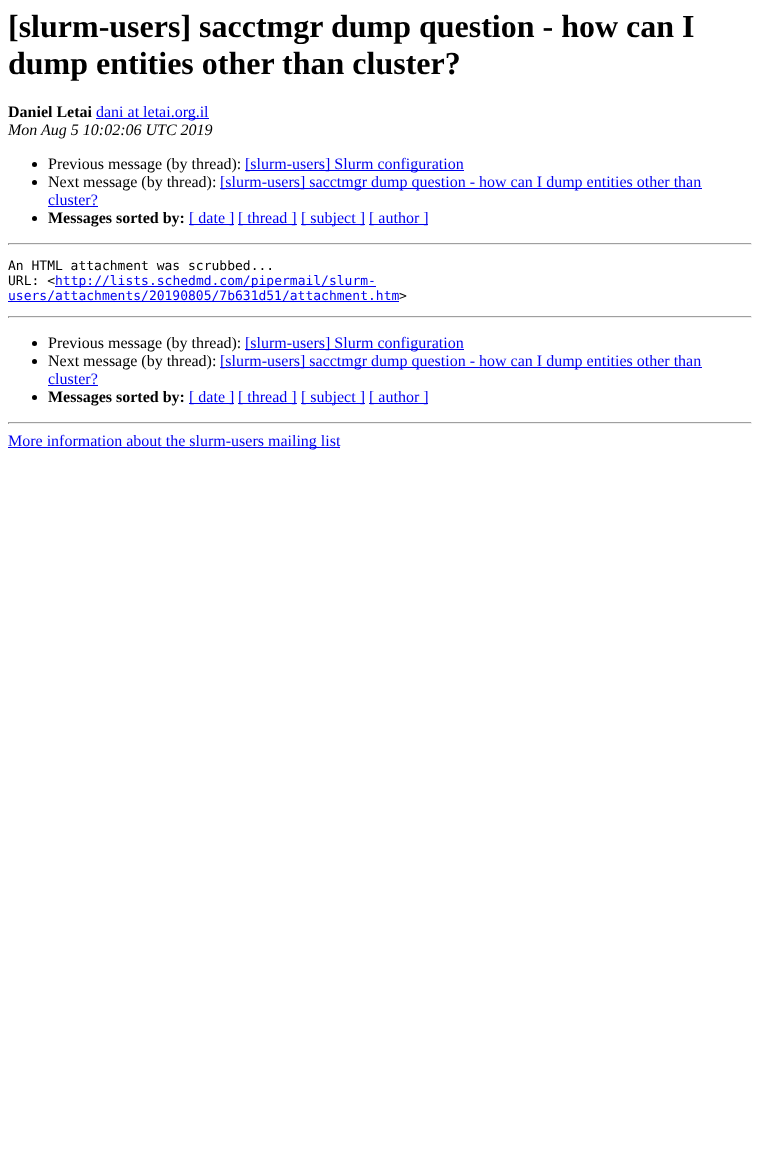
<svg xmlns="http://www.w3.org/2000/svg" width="760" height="1166">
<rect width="100%" height="100%" fill="#fff"/>
<text x="8" y="37" style="font-family:Liberation Serif;font-size:32px;font-weight:bold;fill:#000">[slurm-users] sacctmgr dump question - how can I</text>
<text x="8" y="74" style="font-family:Liberation Serif;font-size:32px;font-weight:bold;fill:#000">dump entities other than cluster?</text>
<text x="8" y="117" style="font-family:Liberation Serif;font-size:16px;font-weight:bold;fill:#000">Daniel Letai</text>
<rect x="96" y="118" width="113" height="1" fill="#00e"/>
<text x="96" y="117" style="font-family:Liberation Serif;font-size:16px;fill:#00e">dani at letai.org.il</text>
<text x="8" y="135" style="font-family:Liberation Serif;font-size:16px;font-style:italic;fill:#000">Mon Aug 5 10:02:06 UTC 2019</text>
<circle cx="34.5" cy="164.5" r="2.5" fill="#000"/>
<text x="48" y="169" style="font-family:Liberation Serif;font-size:16px;fill:#000">Previous message (by thread):</text>
<rect x="245" y="170" width="219" height="1" fill="#00e"/>
<text x="245" y="169" style="font-family:Liberation Serif;font-size:16px;fill:#00e">[slurm-users] Slurm configuration</text>
<circle cx="34.5" cy="182.5" r="2.5" fill="#000"/>
<text x="48" y="187" style="font-family:Liberation Serif;font-size:16px;fill:#000">Next message (by thread):</text>
<rect x="220" y="188" width="482" height="1" fill="#00e"/>
<text x="220" y="187" style="font-family:Liberation Serif;font-size:16px;fill:#00e">[slurm-users] sacctmgr dump question - how can I dump entities other than</text>
<text x="48" y="205" style="font-family:Liberation Serif;font-size:16px;fill:#00e">cluster?</text>
<rect x="48" y="206" width="50" height="1" fill="#00e"/>
<circle cx="34.5" cy="218.5" r="2.5" fill="#000"/>
<text x="48" y="223" style="font-family:Liberation Serif;font-size:16px;font-weight:bold;fill:#000">Messages sorted by:</text>
<rect x="189" y="224" width="45" height="1" fill="#00e"/>
<text x="189" y="223" style="font-family:Liberation Serif;font-size:16px;fill:#00e">[ date ]</text>
<rect x="238" y="224" width="59" height="1" fill="#00e"/>
<text x="238" y="223" style="font-family:Liberation Serif;font-size:16px;fill:#00e">[ thread ]</text>
<rect x="301" y="224" width="64" height="1" fill="#00e"/>
<text x="301" y="223" style="font-family:Liberation Serif;font-size:16px;fill:#00e">[ subject ]</text>
<rect x="369" y="224" width="59" height="1" fill="#00e"/>
<text x="369" y="223" style="font-family:Liberation Serif;font-size:16px;fill:#00e">[ author ]</text>
<rect x="8" y="243" width="744" height="1" fill="#9f9f9f"/>
<rect x="751" y="243" width="1" height="2" fill="#eee"/>
<rect x="8" y="244" width="744" height="1" fill="#eee"/>
<rect x="8" y="243" width="1" height="2" fill="#9f9f9f"/>
<text x="8" y="270" style="font-family:DejaVu Sans Mono;font-size:13px;fill:#000">An HTML attachment was scrubbed...</text>
<text x="8" y="285" style="font-family:DejaVu Sans Mono;font-size:13px;fill:#000">URL: &lt;</text>
<rect x="55" y="286" width="321" height="1" fill="#00e"/>
<text x="55" y="285" style="font-family:DejaVu Sans Mono;font-size:13px;fill:#00e">http://lists.schedmd.com/pipermail/slurm-</text>
<rect x="8" y="301" width="391" height="1" fill="#00e"/>
<text x="8" y="300" style="font-family:DejaVu Sans Mono;font-size:13px;fill:#00e">users/attachments/20190805/7b631d51/attachment.htm</text>
<text x="399" y="300" style="font-family:DejaVu Sans Mono;font-size:13px;fill:#000">&gt;</text>
<rect x="8" y="316" width="744" height="1" fill="#9f9f9f"/>
<rect x="751" y="316" width="1" height="2" fill="#eee"/>
<rect x="8" y="317" width="744" height="1" fill="#eee"/>
<rect x="8" y="316" width="1" height="2" fill="#9f9f9f"/>
<circle cx="34.5" cy="343.5" r="2.5" fill="#000"/>
<text x="48" y="348" style="font-family:Liberation Serif;font-size:16px;fill:#000">Previous message (by thread):</text>
<rect x="245" y="349" width="219" height="1" fill="#00e"/>
<text x="245" y="348" style="font-family:Liberation Serif;font-size:16px;fill:#00e">[slurm-users] Slurm configuration</text>
<circle cx="34.5" cy="361.5" r="2.5" fill="#000"/>
<text x="48" y="366" style="font-family:Liberation Serif;font-size:16px;fill:#000">Next message (by thread):</text>
<rect x="220" y="367" width="482" height="1" fill="#00e"/>
<text x="220" y="366" style="font-family:Liberation Serif;font-size:16px;fill:#00e">[slurm-users] sacctmgr dump question - how can I dump entities other than</text>
<text x="48" y="384" style="font-family:Liberation Serif;font-size:16px;fill:#00e">cluster?</text>
<rect x="48" y="385" width="50" height="1" fill="#00e"/>
<circle cx="34.5" cy="397.5" r="2.5" fill="#000"/>
<text x="48" y="402" style="font-family:Liberation Serif;font-size:16px;font-weight:bold;fill:#000">Messages sorted by:</text>
<rect x="189" y="403" width="45" height="1" fill="#00e"/>
<text x="189" y="402" style="font-family:Liberation Serif;font-size:16px;fill:#00e">[ date ]</text>
<rect x="238" y="403" width="59" height="1" fill="#00e"/>
<text x="238" y="402" style="font-family:Liberation Serif;font-size:16px;fill:#00e">[ thread ]</text>
<rect x="301" y="403" width="64" height="1" fill="#00e"/>
<text x="301" y="402" style="font-family:Liberation Serif;font-size:16px;fill:#00e">[ subject ]</text>
<rect x="369" y="403" width="59" height="1" fill="#00e"/>
<text x="369" y="402" style="font-family:Liberation Serif;font-size:16px;fill:#00e">[ author ]</text>
<rect x="8" y="422" width="744" height="1" fill="#9f9f9f"/>
<rect x="751" y="422" width="1" height="2" fill="#eee"/>
<rect x="8" y="423" width="744" height="1" fill="#eee"/>
<rect x="8" y="422" width="1" height="2" fill="#9f9f9f"/>
<rect x="8" y="447" width="332" height="1" fill="#00e"/>
<text x="8" y="446" style="font-family:Liberation Serif;font-size:16px;fill:#00e">More information about the slurm-users mailing list</text>
</svg>
